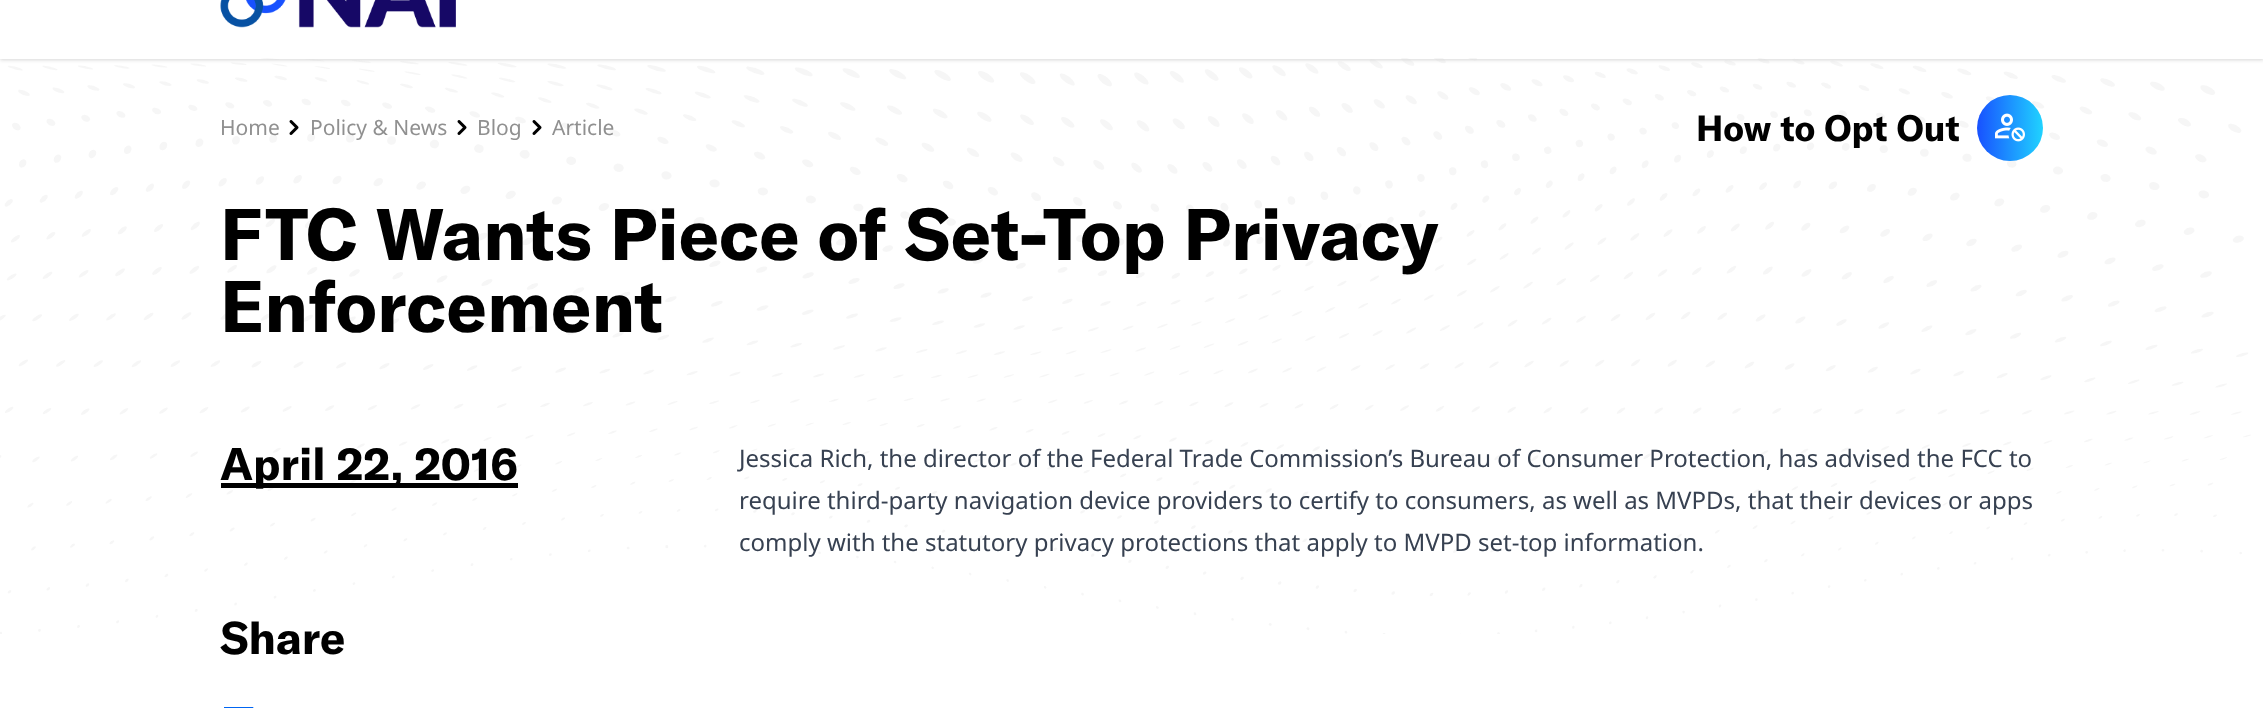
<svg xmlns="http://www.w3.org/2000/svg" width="2263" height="708">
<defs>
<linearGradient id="g1" gradientUnits="userSpaceOnUse" x1="1977" y1="128" x2="2043" y2="128"><stop offset="0" stop-color="#1851ff"/><stop offset="1" stop-color="#20d3ff"/></linearGradient>
</defs>
<rect width="100%" height="100%" fill="#fff"/>
<rect y="-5" width="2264" height="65" fill="#0000000f" filter="blur(1.5px)"/>
<rect y="-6" width="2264" height="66" fill="#0000001a" filter="blur(2px)"/>
<rect width="2263" height="59" fill="#fff"/>
<image x="220" y="0" width="236" height="28" href="media/1.png"/>
<image x="0" y="58" width="2251" height="576" href="media/2.png"/>
<text x="220" y="135" style="font-family:Noto Sans;font-size:21px;fill:#909090">Home</text>
<image x="289" y="120" width="10" height="15" href="media/3.png"/>
<text x="310" y="135" style="font-family:Noto Sans;font-size:21px;fill:#909090">Policy &amp; News</text>
<image x="457" y="120" width="10" height="15" href="media/3.png"/>
<text x="477" y="135" style="font-family:Noto Sans;font-size:21px;fill:#909090">Blog</text>
<image x="532" y="120" width="10" height="15" href="media/3.png"/>
<text x="552" y="135" style="font-family:Noto Sans;font-size:21px;fill:#909090">Article</text>
<text x="1696" y="141" style="font-family:GT America;font-size:36px;font-weight:bold;fill:#000">How to Opt Out</text>
<circle cx="2010" cy="128" r="33" fill="url(#g1)"/>
<image x="1995" y="113" width="30" height="29" href="media/4.png"/>
<text x="220" y="260" style="font-family:GT America;font-size:72px;font-weight:bold;fill:#000">FTC Wants Piece of Set-Top Privacy</text>
<text x="220" y="332" style="font-family:GT America;font-size:72px;font-weight:bold;fill:#000">Enforcement</text>
<rect x="221" y="483" width="297" height="5" fill="#000"/>
<text x="220" y="480" style="font-family:GT America;font-size:45px;font-weight:bold;fill:#000">April 22, 2016</text>
<text x="220" y="654" style="font-family:GT America;font-size:45px;font-weight:bold;fill:#000">Share</text>
<image x="224" y="707" width="30" height="1" href="media/5.png"/>
<text x="739" y="467" style="font-family:Noto Sans;font-size:24px;fill:#374151">Jessica Rich, the director of the Federal Trade Commission’s Bureau of Consumer Protection, has advised the FCC to</text>
<text x="739" y="509" style="font-family:Noto Sans;font-size:24px;fill:#374151">require third-party navigation device providers to certify to consumers, as well as MVPDs, that their devices or apps</text>
<text x="739" y="551" style="font-family:Noto Sans;font-size:24px;fill:#374151">comply with the statutory privacy protections that apply to MVPD set-top information.</text>
</svg>
